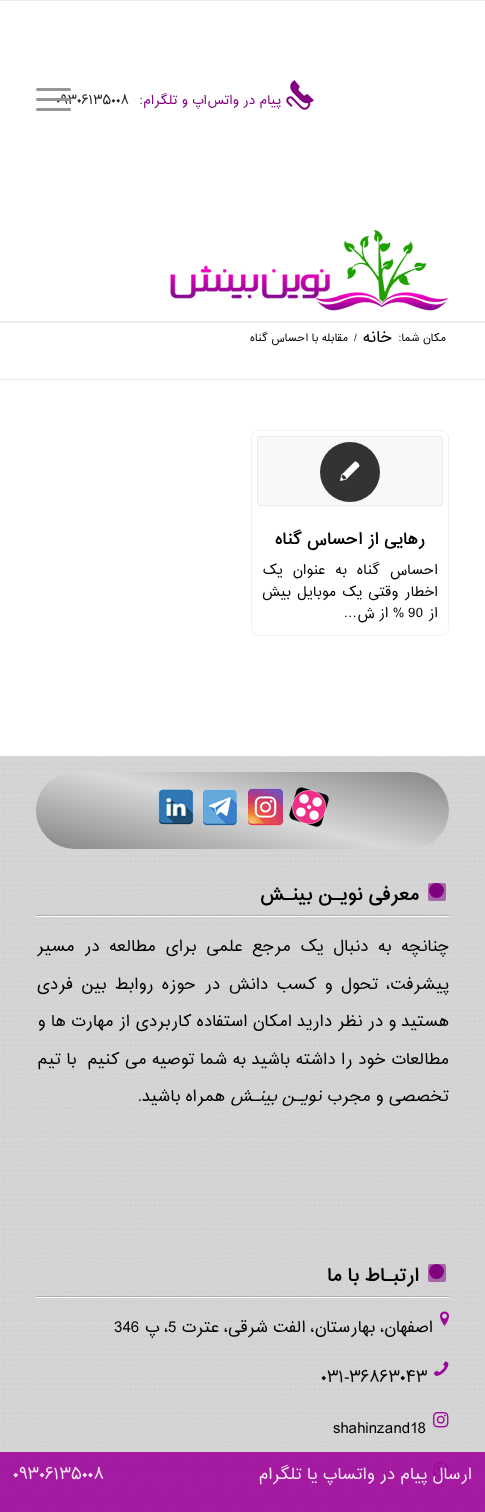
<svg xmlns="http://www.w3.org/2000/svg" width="485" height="1512">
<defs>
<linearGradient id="g1" gradientUnits="userSpaceOnUse" x1="264" y1="726" x2="221" y2="895"><stop offset="0" stop-color="#878687"/><stop offset="0.5" stop-color="#d9d9d9"/><stop offset="1" stop-color="#878687"/></linearGradient>
</defs>
<rect width="100%" height="100%" fill="#fff"/>
<rect width="485" height="1" fill="#ebebeb"/>
<image x="286" y="80" width="28" height="30" href="media/1.png"/>
<text x="281" y="104" style="font-family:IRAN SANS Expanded;font-size:12px;direction:rtl;fill:#800080">پیام در واتس‌اپ و تلگرام:</text>
<text x="56" y="104" style="font-family:IRAN SANS Expanded;font-size:12px;fill:#202020">۰۹۳۰۶۱۳۵۰۰۸</text>
<rect x="36" y="98" width="35" height="3" rx="1.5" fill="#969696"/>
<rect x="36" y="88" width="35" height="3" rx="1.5" fill="#969696"/>
<rect x="36" y="108" width="35" height="3" rx="1.5" fill="#969696"/>
<image x="170" y="230" width="279" height="81" href="media/2.png"/>
<rect y="321" width="485" height="2" fill="#ebebeb"/>
<text x="446" y="341" style="font-family:IRAN SANS Expanded;font-size:10px;direction:rtl;fill:#000">مکان شما:</text>
<text x="392" y="342" style="font-family:IRAN SANS Expanded;font-size:15px;direction:rtl;fill:#000">خانه</text>
<text x="354" y="341" style="font-family:IRAN SANS Expanded;font-size:10px;fill:#000">/</text>
<text x="348" y="341" style="font-family:IRAN SANS Expanded;font-size:10px;direction:rtl;fill:#000">مقابله با احساس گناه</text>
<rect y="379" width="485" height="1" fill="#ebebeb"/>
<rect x="251.5" y="430.5" width="197" height="205" rx="7.5" fill="none" stroke="#f1f1f1"/>
<rect x="257.5" y="436.5" width="185" height="69" rx="2.5" fill="#f8f8f8" stroke="#ebebeb"/>
<circle cx="350" cy="472" r="30" fill="#333"/>
<image x="340" y="461" width="20" height="20" href="media/3.png"/>
<text x="425" y="544" style="font-family:IRAN SANS Expanded;font-size:15px;font-weight:bold;direction:rtl;fill:#000">رهایی از احساس گناه</text>
<text x="438" y="574" word-spacing="5.5" style="font-family:IRAN SANS Expanded;font-size:13px;direction:rtl;fill:#000">احساس گناه به عنوان یک</text>
<text x="438" y="596" style="font-family:IRAN SANS Expanded;font-size:13px;direction:rtl;fill:#000">اخطار</text>
<text x="398" y="596" word-spacing="1.5" style="font-family:IRAN SANS Expanded;font-size:13px;direction:rtl;fill:#000">وقتی یک موبایل بیش</text>
<text x="438" y="617" style="font-family:IRAN SANS Expanded;font-size:13px;direction:rtl;fill:#000">از</text>
<text x="408" y="617" style="font-family:IRAN SANS Expanded;font-size:13px;fill:#000">90</text>
<text x="404" y="617" style="font-family:IRAN SANS Expanded;font-size:13px;direction:rtl;fill:#000">% از ش…</text>
<rect y="756" width="485" height="756" fill="#d7d7d7"/>
<image x="1" y="757" width="484" height="755" href="media/4.png"/>
<rect x="36" y="772" width="413" height="77" rx="38.5" fill="url(#g1)"/>
<image x="289" y="787" width="40" height="40" href="media/5.png"/>
<image x="247" y="788" width="37" height="38" href="media/6.png"/>
<image x="202" y="789" width="35" height="37" href="media/7.png"/>
<image x="158" y="789" width="36" height="36" href="media/8.png"/>
<rect x="36" y="916" width="413" height="1" fill="#fff"/>
<rect x="36" y="915" width="413" height="1" fill="#b1b1b1"/>
<circle cx="436.5" cy="890.5" r="7.5" fill="#800080"/>
<rect x="428" y="883" width="18" height="18" rx="2" fill="#80008085"/>
<text x="419" y="900" style="font-family:IRAN SANS Expanded;font-size:17px;font-weight:bold;direction:rtl;fill:#000">معرفی نویـن بینـش</text>
<text x="449" y="951" word-spacing="4.5" style="font-family:IRAN SANS Expanded;font-size:15px;direction:rtl;fill:#000">چنانچه به دنبال یک مرجع علمی برای مطالعه در مسیر</text>
<text x="449" y="989" word-spacing="3.25" style="font-family:IRAN SANS Expanded;font-size:15px;direction:rtl;fill:#000">پیشرفت، تحول و کسب دانش در حوزه روابط بین فردی</text>
<text x="449" y="1026" word-spacing="0.25" style="font-family:IRAN SANS Expanded;font-size:15px;direction:rtl;fill:#000">هستید و در نظر دارید امکان استفاده کاربردی از مهارت ها و</text>
<text x="449" y="1064" word-spacing="0.5" style="font-family:IRAN SANS Expanded;font-size:15px;direction:rtl;fill:#000" xml:space="preserve">مطالعات خود را داشته باشید به شما توصیه می کنیم  با تیم</text>
<text x="449" y="1101" style="font-family:IRAN SANS Expanded;font-size:15px;direction:rtl;fill:#000">تخصصی و مجرب</text>
<text x="321" y="1101" style="font-family:IRAN SANS Expanded;font-size:15px;font-style:italic;direction:rtl;fill:#000">نویـن بینـش</text>
<text x="225" y="1101" style="font-family:IRAN SANS Expanded;font-size:15px;direction:rtl;fill:#000">همراه باشید.</text>
<rect x="36" y="1297" width="413" height="1" fill="#fff"/>
<rect x="36" y="1296" width="413" height="1" fill="#b1b1b1"/>
<circle cx="436.5" cy="1271.5" r="7.5" fill="#800080"/>
<rect x="428" y="1264" width="18" height="18" rx="2" fill="#80008085"/>
<text x="419" y="1281" style="font-family:IRAN SANS Expanded;font-size:17px;font-weight:bold;direction:rtl;fill:#000">ارتبـاط با ما</text>
<image x="440" y="1311" width="9" height="15" href="media/9.png"/>
<text x="433" y="1332" style="font-family:IRAN SANS Expanded;font-size:15px;direction:rtl;fill:#000">اصفهان، بهارستان، الفت شرقی، عترت</text>
<text x="168" y="1332" style="font-family:IRAN SANS Expanded;font-size:15px;fill:#000">5</text>
<text x="168" y="1332" style="font-family:IRAN SANS Expanded;font-size:15px;direction:rtl;fill:#000">، پ</text>
<text x="114" y="1332" style="font-family:IRAN SANS Expanded;font-size:15px;fill:#000">346</text>
<image x="434" y="1361" width="15" height="15" href="media/10.png"/>
<text x="321" y="1382" style="font-family:IRAN SANS Expanded;font-size:15px;fill:#000">۰۳۱-۳۶۸۶۳۰۴۳</text>
<image x="433" y="1412" width="16" height="16" href="media/11.png"/>
<text x="333" y="1433" style="font-family:IRAN SANS Expanded;font-size:15px;fill:#000">shahinzand18</text>
<image x="433" y="1461" width="16" height="17" href="media/12.png"/>
<rect x="243" y="1452" width="242" height="60" fill="#9f069ae6"/>
<text x="472" y="1479" style="font-family:IRAN SANS Expanded;font-size:15px;direction:rtl;fill:#f6e8f5">ارسال پیام در واتساپ یا تلگرام</text>
<rect y="1452" width="243" height="60" fill="#9f069ae6"/>
<text x="13" y="1479" style="font-family:IRAN SANS Expanded;font-size:15px;fill:#f6e8f5">۰۹۳۰۶۱۳۵۰۰۸</text>
</svg>
